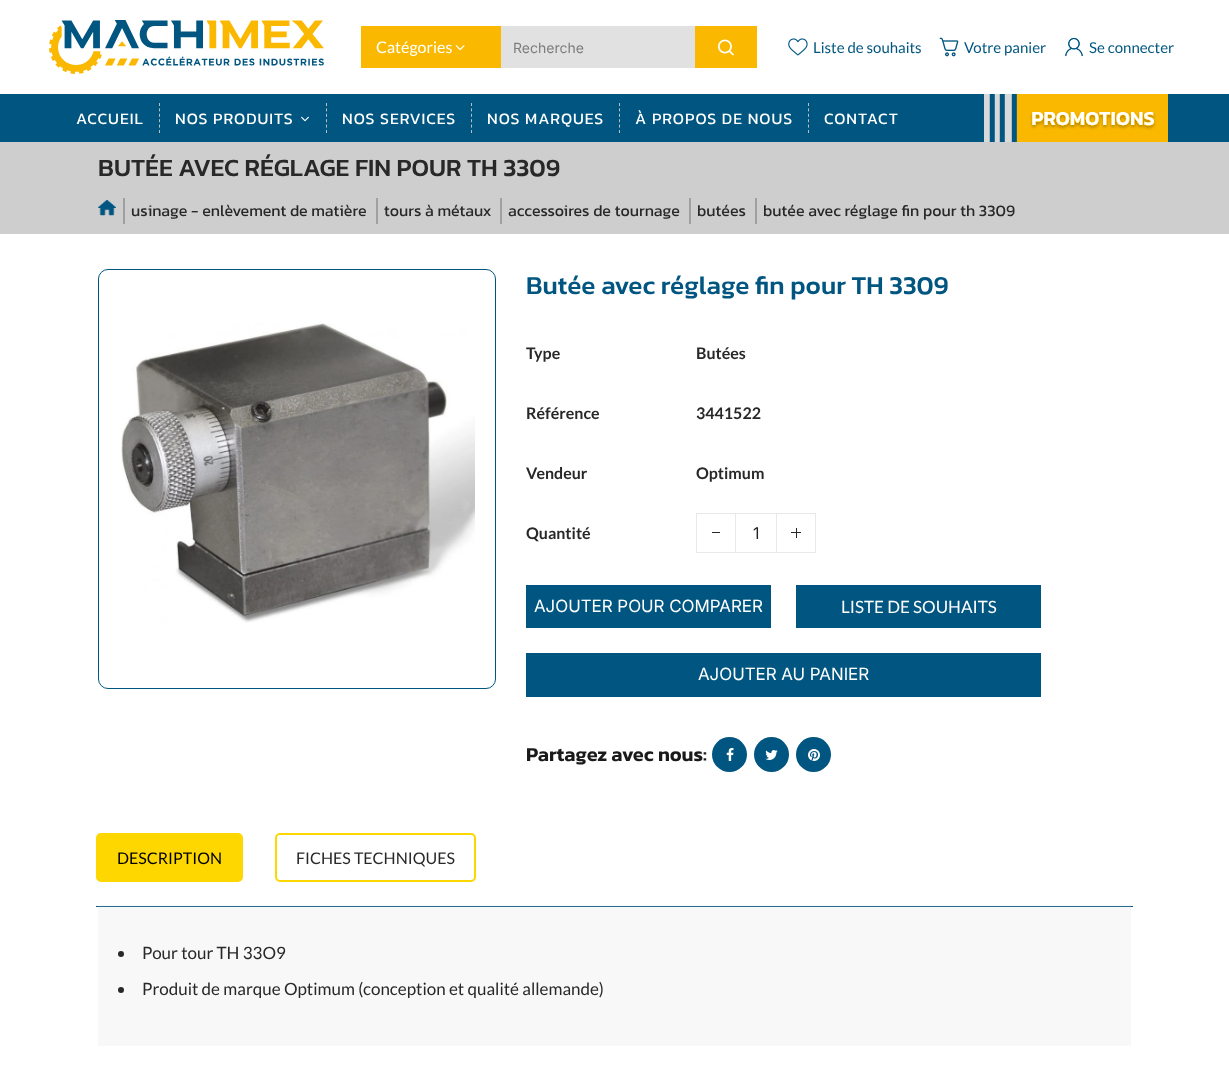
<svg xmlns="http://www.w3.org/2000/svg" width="1229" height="1079">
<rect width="100%" height="100%" fill="#fff"/>
<rect x="98" y="905" width="1033" height="141" fill="#f8f8f8"/>
<image x="49" y="20" width="275" height="54" href="media/1.png"/>
<rect x="361" y="26" width="140" height="42" fill="#fab900"/>
<text x="376" y="53" style="font-family:Lato;font-size:16px;fill:#fff">Catégories</text>
<image x="455" y="45" width="10" height="6" href="media/2.png"/>
<rect x="501" y="26" width="194" height="42" fill="#e1e1e1"/>
<text x="513" y="53" style="font-family:'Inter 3';font-size:14px;fill:#7d7d7d">Recherche</text>
<rect x="695" y="26" width="62" height="42" fill="#fab900"/>
<image x="718" y="39" width="16" height="17" href="media/3.png"/>
<image x="788" y="38" width="20" height="18" href="media/4.png"/>
<text x="813" y="53" style="font-family:Lato;font-size:15px;fill:#005680">Liste de souhaits</text>
<image x="939" y="37" width="20" height="20" href="media/5.png"/>
<text x="964" y="53" style="font-family:Lato;font-size:15px;fill:#005680">Votre panier</text>
<image x="1065" y="37" width="18" height="20" href="media/6.png"/>
<text x="1089" y="53" style="font-family:Lato;font-size:15px;fill:#005680">Se connecter</text>
<rect y="94" width="1229" height="48" fill="#005680"/>
<path d="M159.5 103v30" fill="none" stroke="#bdbdbd" stroke-dasharray="3 2.4"/>
<text x="76" y="124" style="font-family:Kanit;font-size:16px;letter-spacing:1px;fill:#fff">ACCUEIL</text>
<path d="M326.5 103v30" fill="none" stroke="#bdbdbd" stroke-dasharray="3 2.4"/>
<text x="175" y="124" style="font-family:Kanit;font-size:16px;letter-spacing:1px;fill:#fff">NOS PRODUITS</text>
<image x="301" y="116" width="8" height="6" href="media/7.png"/>
<path d="M471.5 103v30" fill="none" stroke="#bdbdbd" stroke-dasharray="3 2.4"/>
<text x="342" y="124" style="font-family:Kanit;font-size:16px;letter-spacing:1px;fill:#fff">NOS SERVICES</text>
<path d="M619.5 103v30" fill="none" stroke="#bdbdbd" stroke-dasharray="3 2.4"/>
<text x="487" y="124" style="font-family:Kanit;font-size:16px;letter-spacing:1px;fill:#fff">NOS MARQUES</text>
<path d="M808.5 103v30" fill="none" stroke="#bdbdbd" stroke-dasharray="3 2.4"/>
<text x="635" y="124" style="font-family:Kanit;font-size:16px;letter-spacing:1px;fill:#fff">À PROPOS DE NOUS</text>
<text x="824" y="124" style="font-family:Kanit;font-size:16px;letter-spacing:1px;fill:#fff">CONTACT</text>
<image x="984" y="94" width="184" height="48" href="media/8.png"/>
<rect y="142" width="1229" height="92" fill="#cecece"/>
<text x="98" y="176" style="font-family:Kanit;font-size:25px;font-weight:500;fill:#282828">BUTÉE AVEC RÉGLAGE FIN POUR TH 3309</text>
<image x="98" y="200" width="18" height="16" href="media/9.png"/>
<rect x="123" y="198" width="2" height="26" fill="#a0a0a0"/>
<text x="131" y="216" style="font-family:Kanit;font-size:16px;fill:#282828">usinage - enlèvement de matière</text>
<rect x="376" y="198" width="2" height="26" fill="#a0a0a0"/>
<text x="384" y="216" style="font-family:Kanit;font-size:16px;fill:#282828">tours à métaux</text>
<rect x="500" y="198" width="2" height="26" fill="#a0a0a0"/>
<text x="508" y="216" style="font-family:Kanit;font-size:16px;fill:#282828">accessoires de tournage</text>
<rect x="689" y="198" width="2" height="26" fill="#a0a0a0"/>
<text x="697" y="216" style="font-family:Kanit;font-size:16px;fill:#282828">butées</text>
<rect x="755" y="198" width="2" height="26" fill="#a0a0a0"/>
<text x="763" y="216" style="font-family:Kanit;font-size:16px;fill:#282828">butée avec réglage fin pour th 3309</text>
<rect x="98.5" y="269.5" width="397" height="419" rx="9.5" fill="none" stroke="#005680"/>
<image x="121" y="323" width="354" height="300" href="media/10.png"/>
<text x="526" y="294" style="font-family:Kanit;font-size:26px;font-weight:500;fill:#005680">Butée avec réglage fin pour TH 3309</text>
<text x="526" y="359" style="font-family:Lato;font-size:16px;font-weight:bold;fill:#282828">Type</text>
<text x="696" y="359" style="font-family:Lato;font-size:16px;font-weight:bold;fill:#282828">Butées</text>
<text x="526" y="419" style="font-family:Lato;font-size:16px;font-weight:bold;fill:#282828">Référence</text>
<text x="696" y="419" style="font-family:Lato;font-size:16px;font-weight:bold;fill:#282828">3441522</text>
<text x="526" y="479" style="font-family:Lato;font-size:16px;font-weight:bold;fill:#282828">Vendeur</text>
<text x="696" y="479" style="font-family:Lato;font-size:16px;font-weight:bold;fill:#282828">Optimum</text>
<text x="526" y="539" style="font-family:Lato;font-size:16px;font-weight:bold;fill:#282828">Quantité</text>
<rect x="696.5" y="513.5" width="39" height="39" fill="none" stroke="#e9e9e9"/>
<rect x="712" y="532" width="8" height="1" fill="#282828"/>
<rect x="736" y="513" width="40" height="1" fill="#e9e9e9"/>
<rect x="736" y="552" width="40" height="1" fill="#e9e9e9"/>
<text x="753" y="539" style="font-family:Inter;font-size:16px;fill:#212529">1</text>
<rect x="776.5" y="513.5" width="39" height="39" fill="none" stroke="#e9e9e9"/>
<rect x="791" y="532" width="10" height="1" fill="#282828"/>
<rect x="796" y="528" width="1" height="10" fill="#282828"/>
<rect x="526" y="585" width="245" height="43" fill="#005680"/>
<text x="534" y="612" style="font-family:'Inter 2';font-size:17px;fill:#fff">AJOUTER POUR COMPARER</text>
<rect x="796" y="585" width="245" height="43" fill="#005680"/>
<text x="841" y="613" style="font-family:Lato;font-size:17px;fill:#fff">LISTE DE SOUHAITS</text>
<rect x="526" y="653" width="515" height="44" fill="#005680"/>
<text x="698" y="680" style="font-family:'Inter 2';font-size:17px;fill:#fff">AJOUTER AU PANIER</text>
<text x="526" y="761" style="font-family:Kanit;font-size:20px;font-weight:600;fill:#1a1a1a">Partagez avec nous:</text>
<circle cx="729.5" cy="754.5" r="17.5" fill="#005680"/>
<image x="726" y="748" width="8" height="13" href="media/11.png"/>
<circle cx="771.5" cy="754.5" r="17.5" fill="#005680"/>
<image x="765" y="750" width="13" height="10" href="media/12.png"/>
<circle cx="813.5" cy="754.5" r="17.5" fill="#005680"/>
<image x="808" y="749" width="12" height="12" href="media/13.png"/>
<rect x="96" y="906" width="1037" height="1" fill="#005680"/>
<rect x="98" y="906" width="1033" height="1" fill="#276e90"/>
<rect x="97" y="834" width="145" height="47" rx="4" fill="#fed700" stroke="#fed700" stroke-width="2"/>
<text x="117" y="864" style="font-family:Lato;font-size:16px;fill:#000">DESCRIPTION</text>
<rect x="276" y="834" width="199" height="47" rx="4" fill="none" stroke="#fed700" stroke-width="2"/>
<text x="296" y="864" style="font-family:Lato;font-size:16px;fill:#282828">FICHES TECHNIQUES</text>
<circle cx="121" cy="954" r="3" fill="#282828"/>
<text x="142" y="959" style="font-family:Lato;font-size:17px;fill:#282828">Pour tour TH 33O9</text>
<circle cx="121" cy="990" r="3" fill="#282828"/>
<text x="142" y="995" style="font-family:Lato;font-size:17px;fill:#282828">Produit de marque Optimum (conception et qualité allemande)</text>
</svg>
